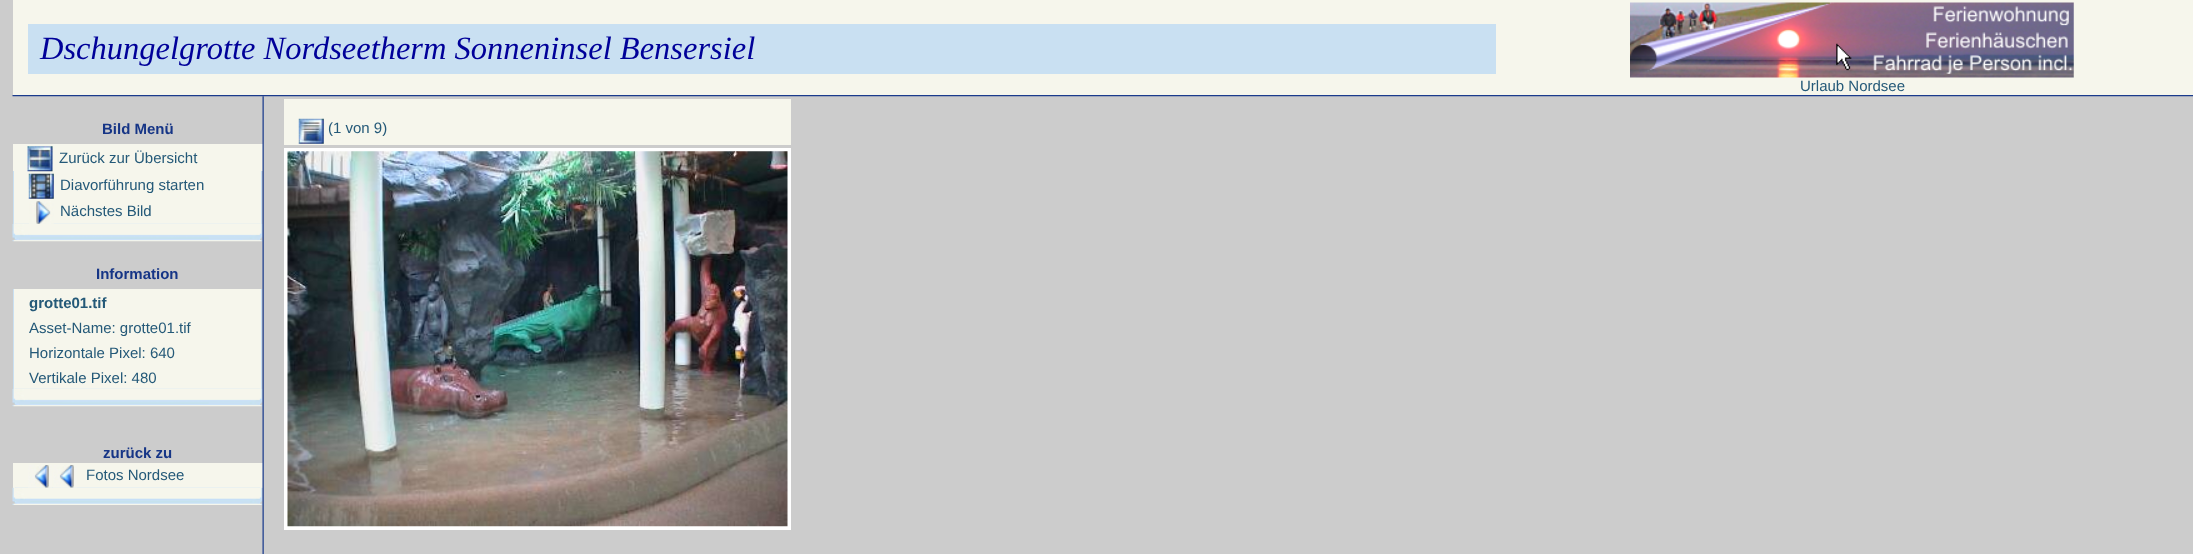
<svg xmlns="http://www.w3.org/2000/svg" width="2193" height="554">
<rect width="100%" height="100%" fill="#ccc"/>
<rect x="13" width="2180" height="95" fill="#f6f6ec"/>
<rect x="28" y="24" width="1468" height="50" fill="#c9e0f2"/>
<text x="40" y="59" style="font-family:Liberation Serif;font-size:32.5px;font-style:italic;fill:#009">Dschungelgrotte Nordseetherm Sonneninsel Bensersiel</text>
<image x="1630" y="2" width="444" height="76" href="media/1.png"/>
<text x="1800" y="91" style="font-family:Liberation Sans;font-size:15px;fill:#245978">Urlaub Nordsee</text>
<image x="12" y="95" width="2181" height="2" href="media/2.png"/>
<text x="102" y="134" style="font-family:Liberation Sans;font-size:15px;font-weight:bold;fill:#163586">Bild Menü</text>
<rect x="13" y="144" width="250" height="27" fill="#f6f6ec"/>
<rect x="14" y="171" width="247" height="53" fill="#f6f6ec"/>
<image x="27" y="146" width="26" height="26" href="media/3.png"/>
<text x="59" y="163" style="font-family:Liberation Sans;font-size:15px;fill:#245978">Zurück zur Übersicht</text>
<rect x="13" y="171" width="1" height="53" fill="#c9e0f2"/>
<image x="28" y="173" width="26" height="26" href="media/4.png"/>
<text x="60" y="190" style="font-family:Liberation Sans;font-size:15px;fill:#245978">Diavorführung starten</text>
<rect x="261" y="171" width="1" height="53" fill="#c9e0f2"/>
<image x="12" y="223" width="251" height="19" href="media/6.png"/>
<image x="29" y="201" width="25" height="23" href="media/5.png"/>
<text x="60" y="216" style="font-family:Liberation Sans;font-size:15px;fill:#245978">Nächstes Bild</text>
<text x="96" y="279" style="font-family:Liberation Sans;font-size:15px;font-weight:bold;fill:#163586">Information</text>
<rect x="13" y="289" width="1" height="100" fill="#c9e0f2"/>
<rect x="14" y="289" width="247" height="100" fill="#f6f6ec"/>
<text x="29" y="308" style="font-family:Liberation Sans;font-size:15px;font-weight:bold;fill:#245978">grotte01.tif</text>
<rect x="261" y="289" width="1" height="100" fill="#c9e0f2"/>
<text x="29" y="333" style="font-family:Liberation Sans;font-size:15px;fill:#245978">Asset-Name: grotte01.tif</text>
<text x="29" y="358" style="font-family:Liberation Sans;font-size:15px;fill:#245978">Horizontale Pixel: 640</text>
<text x="29" y="383" style="font-family:Liberation Sans;font-size:15px;fill:#245978">Vertikale Pixel: 480</text>
<image x="12" y="388" width="251" height="19" href="media/7.png"/>
<text x="103" y="458" style="font-family:Liberation Sans;font-size:15px;font-weight:bold;fill:#163586">zurück zu</text>
<rect x="13" y="463" width="250" height="25" fill="#f6f6ec"/>
<image x="12" y="487" width="251" height="18" href="media/10.png"/>
<image x="28" y="465" width="24" height="23" href="media/8.png"/>
<image x="53" y="465" width="24" height="23" href="media/9.png"/>
<text x="86" y="480" style="font-family:Liberation Sans;font-size:15px;fill:#245978">Fotos Nordsee</text>
<image x="262" y="96" width="2" height="458" href="media/11.png"/>
<rect x="284" y="99" width="507" height="46" fill="#f6f6ec"/>
<image x="298" y="118" width="26" height="26" href="media/12.png"/>
<text x="328" y="133" style="font-family:Liberation Sans;font-size:15px;fill:#245978">(1 von 9)</text>
<rect x="284" y="148" width="507" height="382" fill="#fff"/>
<image x="287" y="151" width="501" height="376" href="media/13.png"/>
</svg>
